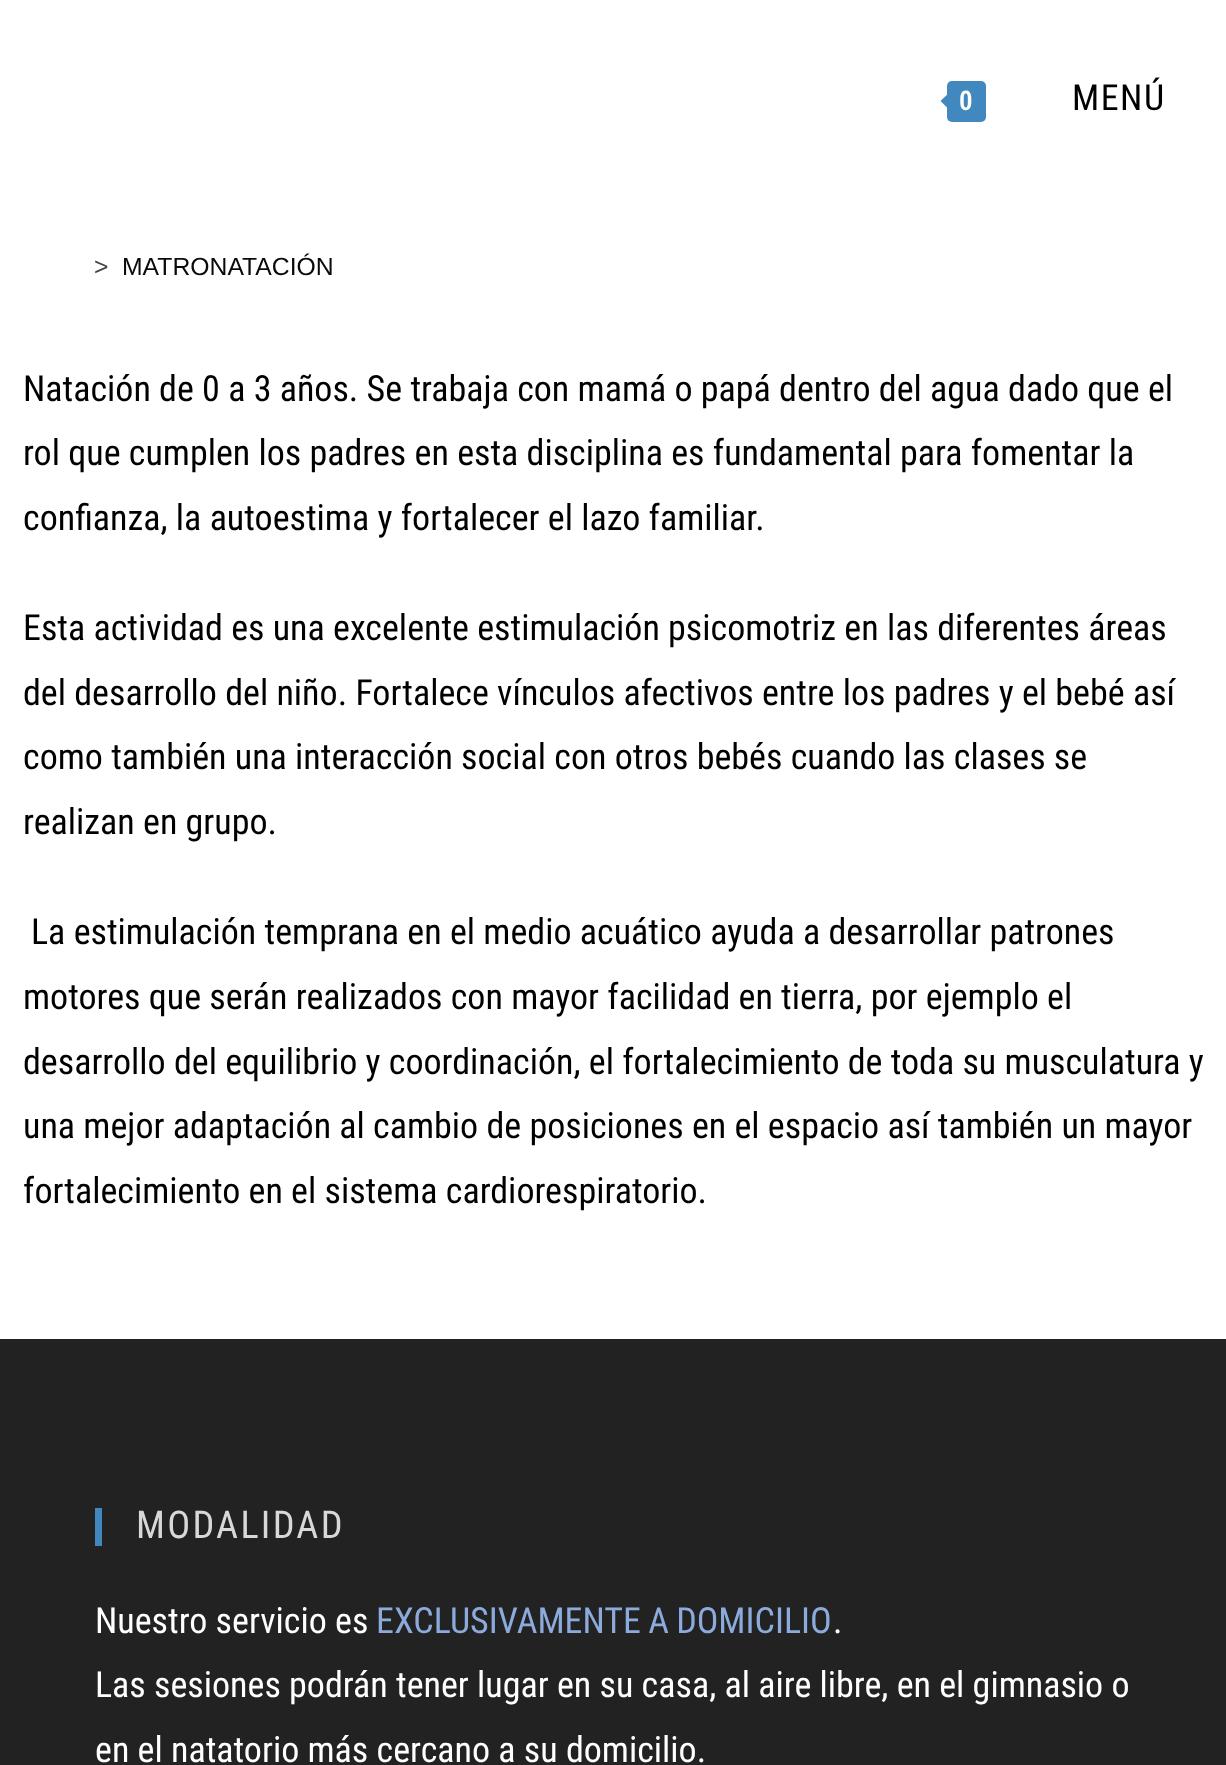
<svg xmlns="http://www.w3.org/2000/svg" width="1226" height="1765">
<rect width="100%" height="100%" fill="#fff"/>
<rect x="947" y="81" width="39" height="41" rx="5" fill="#4088bd"/>
<path d="M952 90v22.5l-11.5-11.5z" fill="#4088bd"/>
<text x="959" y="110" style="font-family:Roboto Condensed;font-size:27px;font-weight:600;letter-spacing:1.5px;fill:#fff">0</text>
<text x="1072" y="110" style="font-family:Roboto Condensed;font-size:36px;letter-spacing:1.5px;fill:#000">MENÚ</text>
<text x="94" y="275" style="font-family:Liberation Sans;font-size:24.75px;fill:#444">&gt;</text>
<text x="122" y="275" style="font-family:Liberation Sans;font-size:24.75px;fill:#0a0a0a">MATRONATACIÓN</text>
<text x="23" y="401" style="font-family:Roboto Condensed;font-size:36px;fill:#000">Natación de 0 a 3 años. Se trabaja con mamá o papá dentro del agua dado que el</text>
<text x="23" y="465" style="font-family:Roboto Condensed;font-size:36px;fill:#000">rol que cumplen los padres en esta disciplina es fundamental para fomentar la</text>
<text x="23" y="530" style="font-family:Roboto Condensed;font-size:36px;fill:#000">confianza, la autoestima y fortalecer el lazo familiar.</text>
<text x="23" y="640" style="font-family:Roboto Condensed;font-size:36px;fill:#000">Esta actividad es una excelente estimulación psicomotriz en las diferentes áreas</text>
<text x="23" y="705" style="font-family:Roboto Condensed;font-size:36px;fill:#000">del desarrollo del niño. Fortalece vínculos afectivos entre los padres y el bebé así</text>
<text x="23" y="769" style="font-family:Roboto Condensed;font-size:36px;fill:#000">como también una interacción social con otros bebés cuando las clases se</text>
<text x="23" y="834" style="font-family:Roboto Condensed;font-size:36px;fill:#000">realizan en grupo.</text>
<text x="31" y="944" style="font-family:Roboto Condensed;font-size:36px;fill:#000">La estimulación temprana en el medio acuático ayuda a desarrollar patrones</text>
<text x="23" y="1009" style="font-family:Roboto Condensed;font-size:36px;fill:#000">motores que serán realizados con mayor facilidad en tierra, por ejemplo el</text>
<text x="23" y="1074" style="font-family:Roboto Condensed;font-size:36px;fill:#000">desarrollo del equilibrio y coordinación, el fortalecimiento de toda su musculatura y</text>
<text x="23" y="1138" style="font-family:Roboto Condensed;font-size:36px;fill:#000">una mejor adaptación al cambio de posiciones en el espacio así también un mayor</text>
<text x="23" y="1203" style="font-family:Roboto Condensed;font-size:36px;fill:#000">fortalecimiento en el sistema cardiorespiratorio.</text>
<rect y="1339" width="1226" height="426" fill="#222"/>
<rect x="95" y="1508" width="7" height="38" fill="#4088bd"/>
<text x="136" y="1538" style="font-family:Roboto Condensed;font-size:38.25px;letter-spacing:2.25px;fill:#d8d8d8">MODALIDAD</text>
<text x="95" y="1633" style="font-family:Roboto Condensed;font-size:36px;fill:#fff">Nuestro servicio es</text>
<text x="376" y="1633" word-spacing="-1" style="font-family:Roboto Condensed;font-size:36px;fill:#8cabdc">EXCLUSIVAMENTE A DOMICILIO</text>
<text x="833" y="1633" style="font-family:Roboto Condensed;font-size:36px;fill:#fff">.</text>
<text x="95" y="1697" style="font-family:Roboto Condensed;font-size:36px;fill:#fff">Las sesiones podrán tener lugar en su casa, al aire libre, en el gimnasio o</text>
<text x="95" y="1762" style="font-family:Roboto Condensed;font-size:36px;fill:#fff">en el natatorio más cercano a su domicilio.</text>
</svg>
